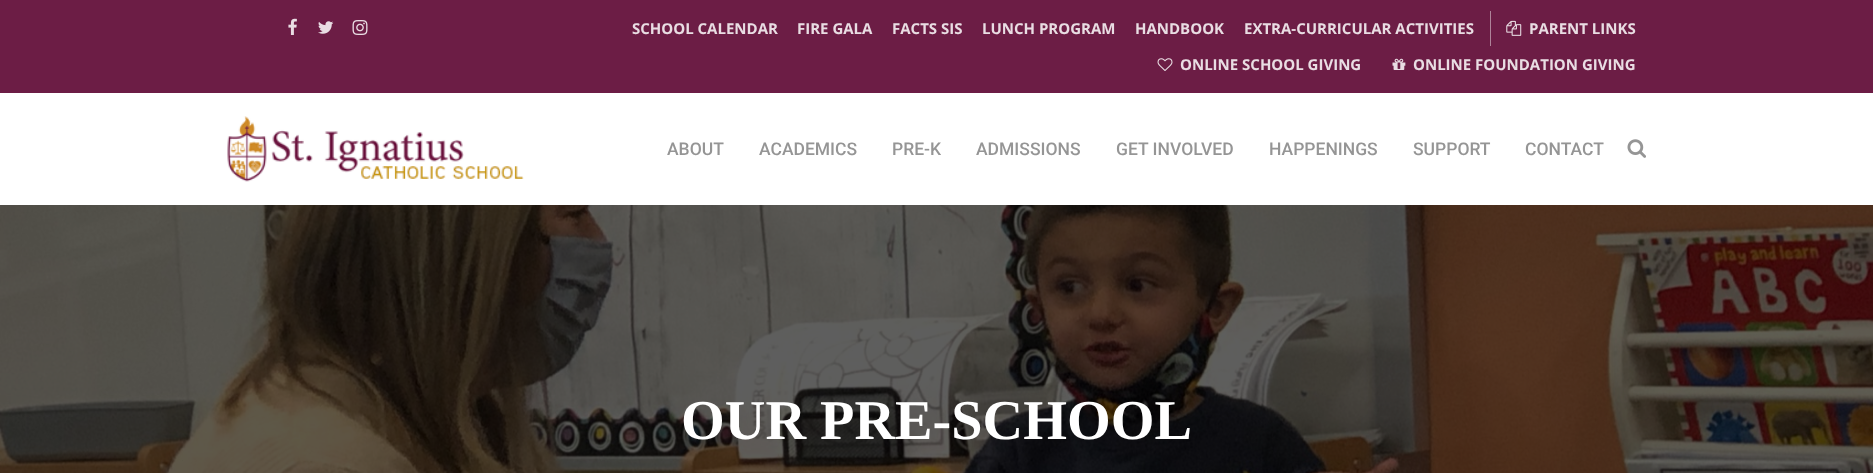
<svg xmlns="http://www.w3.org/2000/svg" width="1873" height="473">
<rect width="100%" height="100%" fill="#6c1d45"/>
<image x="288" y="18" width="9" height="17" href="media/1.png"/>
<image x="318" y="21" width="16" height="13" href="media/2.png"/>
<image x="352" y="20" width="16" height="15" href="media/3.png"/>
<text x="632" y="34" style="font-family:Open Sans;font-size:15px;font-weight:bold;fill:#e9dde3">SCHOOL CALENDAR</text>
<text x="797" y="34" style="font-family:Open Sans;font-size:15px;font-weight:bold;fill:#e9dde3">FIRE GALA</text>
<text x="892" y="34" style="font-family:Open Sans;font-size:15px;font-weight:bold;fill:#e9dde3">FACTS SIS</text>
<text x="982" y="34" style="font-family:Open Sans;font-size:15px;font-weight:bold;fill:#e9dde3">LUNCH PROGRAM</text>
<text x="1135" y="34" style="font-family:Open Sans;font-size:15px;font-weight:bold;fill:#e9dde3">HANDBOOK</text>
<text x="1244" y="34" style="font-family:Open Sans;font-size:15px;font-weight:bold;fill:#e9dde3">EXTRA-CURRICULAR ACTIVITIES</text>
<rect x="1490" y="11" width="1" height="35" fill="#ae8399"/>
<image x="1506" y="20" width="16" height="16" href="media/4.png"/>
<text x="1529" y="34" style="font-family:Open Sans;font-size:15px;font-weight:bold;fill:#e9dde3">PARENT LINKS</text>
<image x="1157" y="58" width="16" height="13" href="media/5.png"/>
<text x="1180" y="70" style="font-family:Open Sans;font-size:15px;font-weight:bold;fill:#e9dde3">ONLINE SCHOOL GIVING</text>
<image x="1392" y="58" width="14" height="12" href="media/6.png"/>
<text x="1413" y="70" style="font-family:Open Sans;font-size:15px;font-weight:bold;fill:#e9dde3">ONLINE FOUNDATION GIVING</text>
<rect y="93" width="1873" height="112" fill="#fff"/>
<image x="227" y="116" width="297" height="66" href="media/7.png"/>
<text x="667" y="155" style="font-family:Roboto;font-size:17.5px;font-weight:500;fill:#959595">ABOUT</text>
<text x="759" y="155" style="font-family:Roboto;font-size:17.5px;font-weight:500;fill:#959595">ACADEMICS</text>
<text x="892" y="155" style="font-family:Roboto;font-size:17.5px;font-weight:500;fill:#959595">PRE-K</text>
<text x="976" y="155" style="font-family:Roboto;font-size:17.5px;font-weight:500;fill:#959595">ADMISSIONS</text>
<text x="1116" y="155" style="font-family:Roboto;font-size:17.5px;font-weight:500;fill:#959595">GET INVOLVED</text>
<text x="1269" y="155" style="font-family:Roboto;font-size:17.5px;font-weight:500;fill:#959595">HAPPENINGS</text>
<text x="1413" y="155" style="font-family:Roboto;font-size:17.5px;font-weight:500;fill:#959595">SUPPORT</text>
<text x="1525" y="155" style="font-family:Roboto;font-size:17.5px;font-weight:500;fill:#959595">CONTACT</text>
<image x="1627" y="139" width="19" height="19" href="media/8.png"/>
<image x="0" y="205" width="1873" height="268" href="media/9.png"/>
<text x="681" y="439" style="font-family:Liberation Serif;font-size:56.25px;font-weight:bold;fill:#fff">OUR PRE-SCHOOL</text>
</svg>
